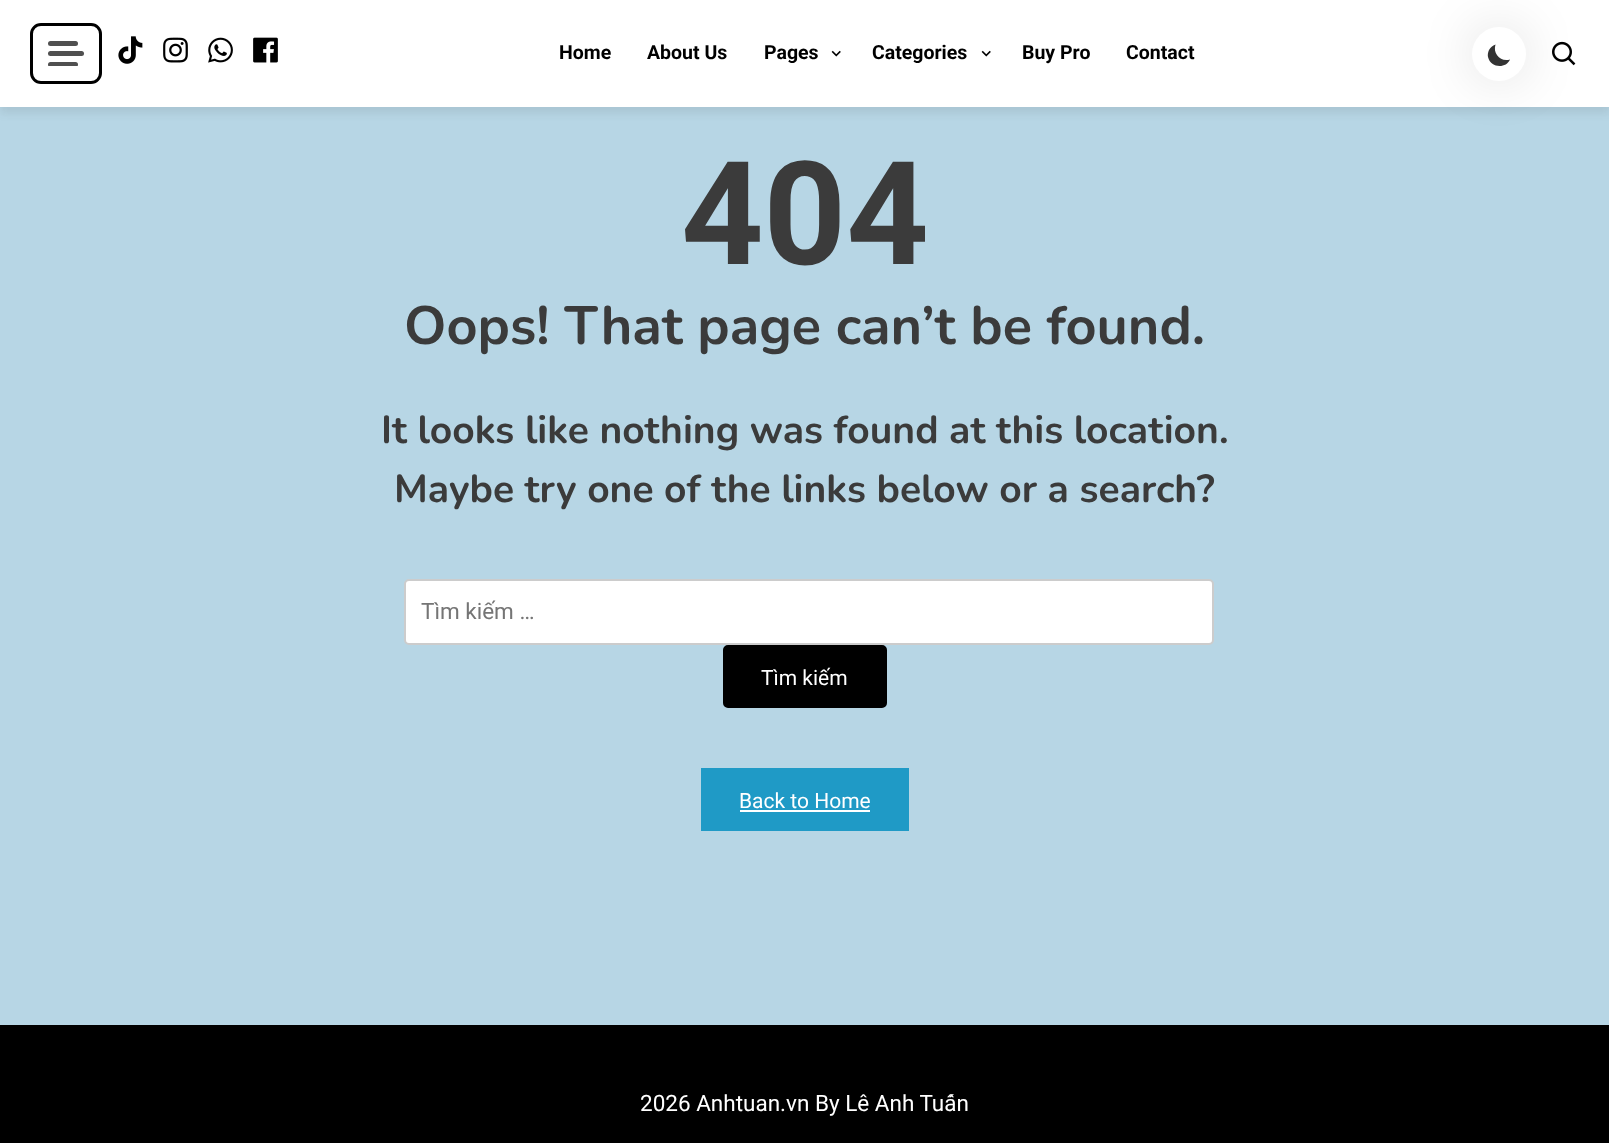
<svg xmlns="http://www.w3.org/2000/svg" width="1609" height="1143">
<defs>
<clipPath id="clip1"><rect x="48" y="41" width="36" height="25"/></clipPath>
</defs>
<rect width="100%" height="100%" fill="#b7d6e5"/>
<rect y="6" width="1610" height="107" fill="#3535351a" filter="blur(4.5px)"/>
<rect width="1609" height="107" fill="#fff"/>
<rect x="31.5" y="24.5" width="69" height="58" rx="9.5" fill="none" stroke="#000" stroke-width="3"/>
<rect x="48" y="41" width="30" height="5" rx="2.5" fill="#505050"/>
<rect x="48" y="51" width="36" height="5" rx="2.5" fill="#505050"/>
<g clip-path="url(#clip1)">
<rect x="48" y="62" width="30" height="5" rx="2.5" fill="#505050"/>
</g>
<image x="118" y="36" width="25" height="28" href="media/1.png"/>
<image x="163" y="37" width="25" height="26" href="media/2.png"/>
<image x="208" y="37" width="25" height="26" href="media/3.png"/>
<image x="253" y="37" width="25" height="26" href="media/4.png"/>
<rect x="1472" y="27" width="54" height="54" rx="27" fill="#00000021" filter="blur(26px)"/>
<circle cx="1499" cy="54" r="27" fill="#fff"/>
<path d="M1510 59.5c-9 3-17.5-5.5-14.5-15c-3 1-5 3-6.5 5.5c-1 2-1.5 5-1 7c2.5 11 18 12 22 2.5z" fill="#333"/>
<text x="559" y="59" style="font-family:Roboto;font-size:19.5px;font-weight:bold;fill:#000">Home</text>
<text x="647" y="59" style="font-family:Roboto;font-size:19.5px;font-weight:bold;fill:#000">About Us</text>
<text x="764" y="59" style="font-family:Roboto;font-size:19.5px;font-weight:bold;fill:#000">Pages</text>
<image x="831" y="50" width="10" height="7" href="media/5.png"/>
<text x="872" y="59" style="font-family:Roboto;font-size:19.5px;font-weight:bold;fill:#000">Categories</text>
<image x="981" y="50" width="10" height="7" href="media/5.png"/>
<text x="1022" y="59" style="font-family:Roboto;font-size:19.5px;font-weight:bold;fill:#000">Buy Pro</text>
<text x="1126" y="59" style="font-family:Roboto;font-size:19.5px;font-weight:bold;fill:#000">Contact</text>
<image x="1552" y="41" width="24" height="25" href="media/6.png"/>
<text x="681" y="264" style="font-family:Roboto;font-size:144px;font-weight:bold;fill:#3b3b3b">404</text>
<text x="404" y="344" style="font-family:Nunito;font-size:54px;font-weight:bold;fill:#3b3b3b">Oops! That page can’t be found.</text>
<text x="381" y="443" style="font-family:Nunito;font-size:39px;font-weight:bold;fill:#3b3b3b">It looks like nothing was found at this location.</text>
<text x="394" y="502" style="font-family:Nunito;font-size:39px;font-weight:bold;fill:#3b3b3b">Maybe try one of the links below or a search?</text>
<rect x="405" y="580" width="808" height="64" rx="4" fill="#fff" stroke="#ccc" stroke-width="2"/>
<text x="421" y="619" style="font-family:Roboto;font-size:22.5px;fill:#757575">Tìm kiếm …</text>
<rect x="724" y="646" width="162" height="61" rx="4" fill="#000" stroke="#000" stroke-width="2"/>
<text x="761" y="685" style="font-family:Roboto;font-size:21px;fill:#fff">Tìm kiếm</text>
<rect x="701" y="768" width="208" height="63" fill="#1f9ac6"/>
<text x="739" y="808" style="font-family:Roboto;font-size:21px;fill:#fff">Back to Home</text>
<rect x="740" y="810" width="130" height="2" fill="#fff"/>
<rect y="1025" width="1609" height="118" fill="#000"/>
<text x="640" y="1111" style="font-family:Roboto;font-size:22.5px;fill:#fff">2026 Anhtuan.vn By Lê Anh Tuấn</text>
</svg>
